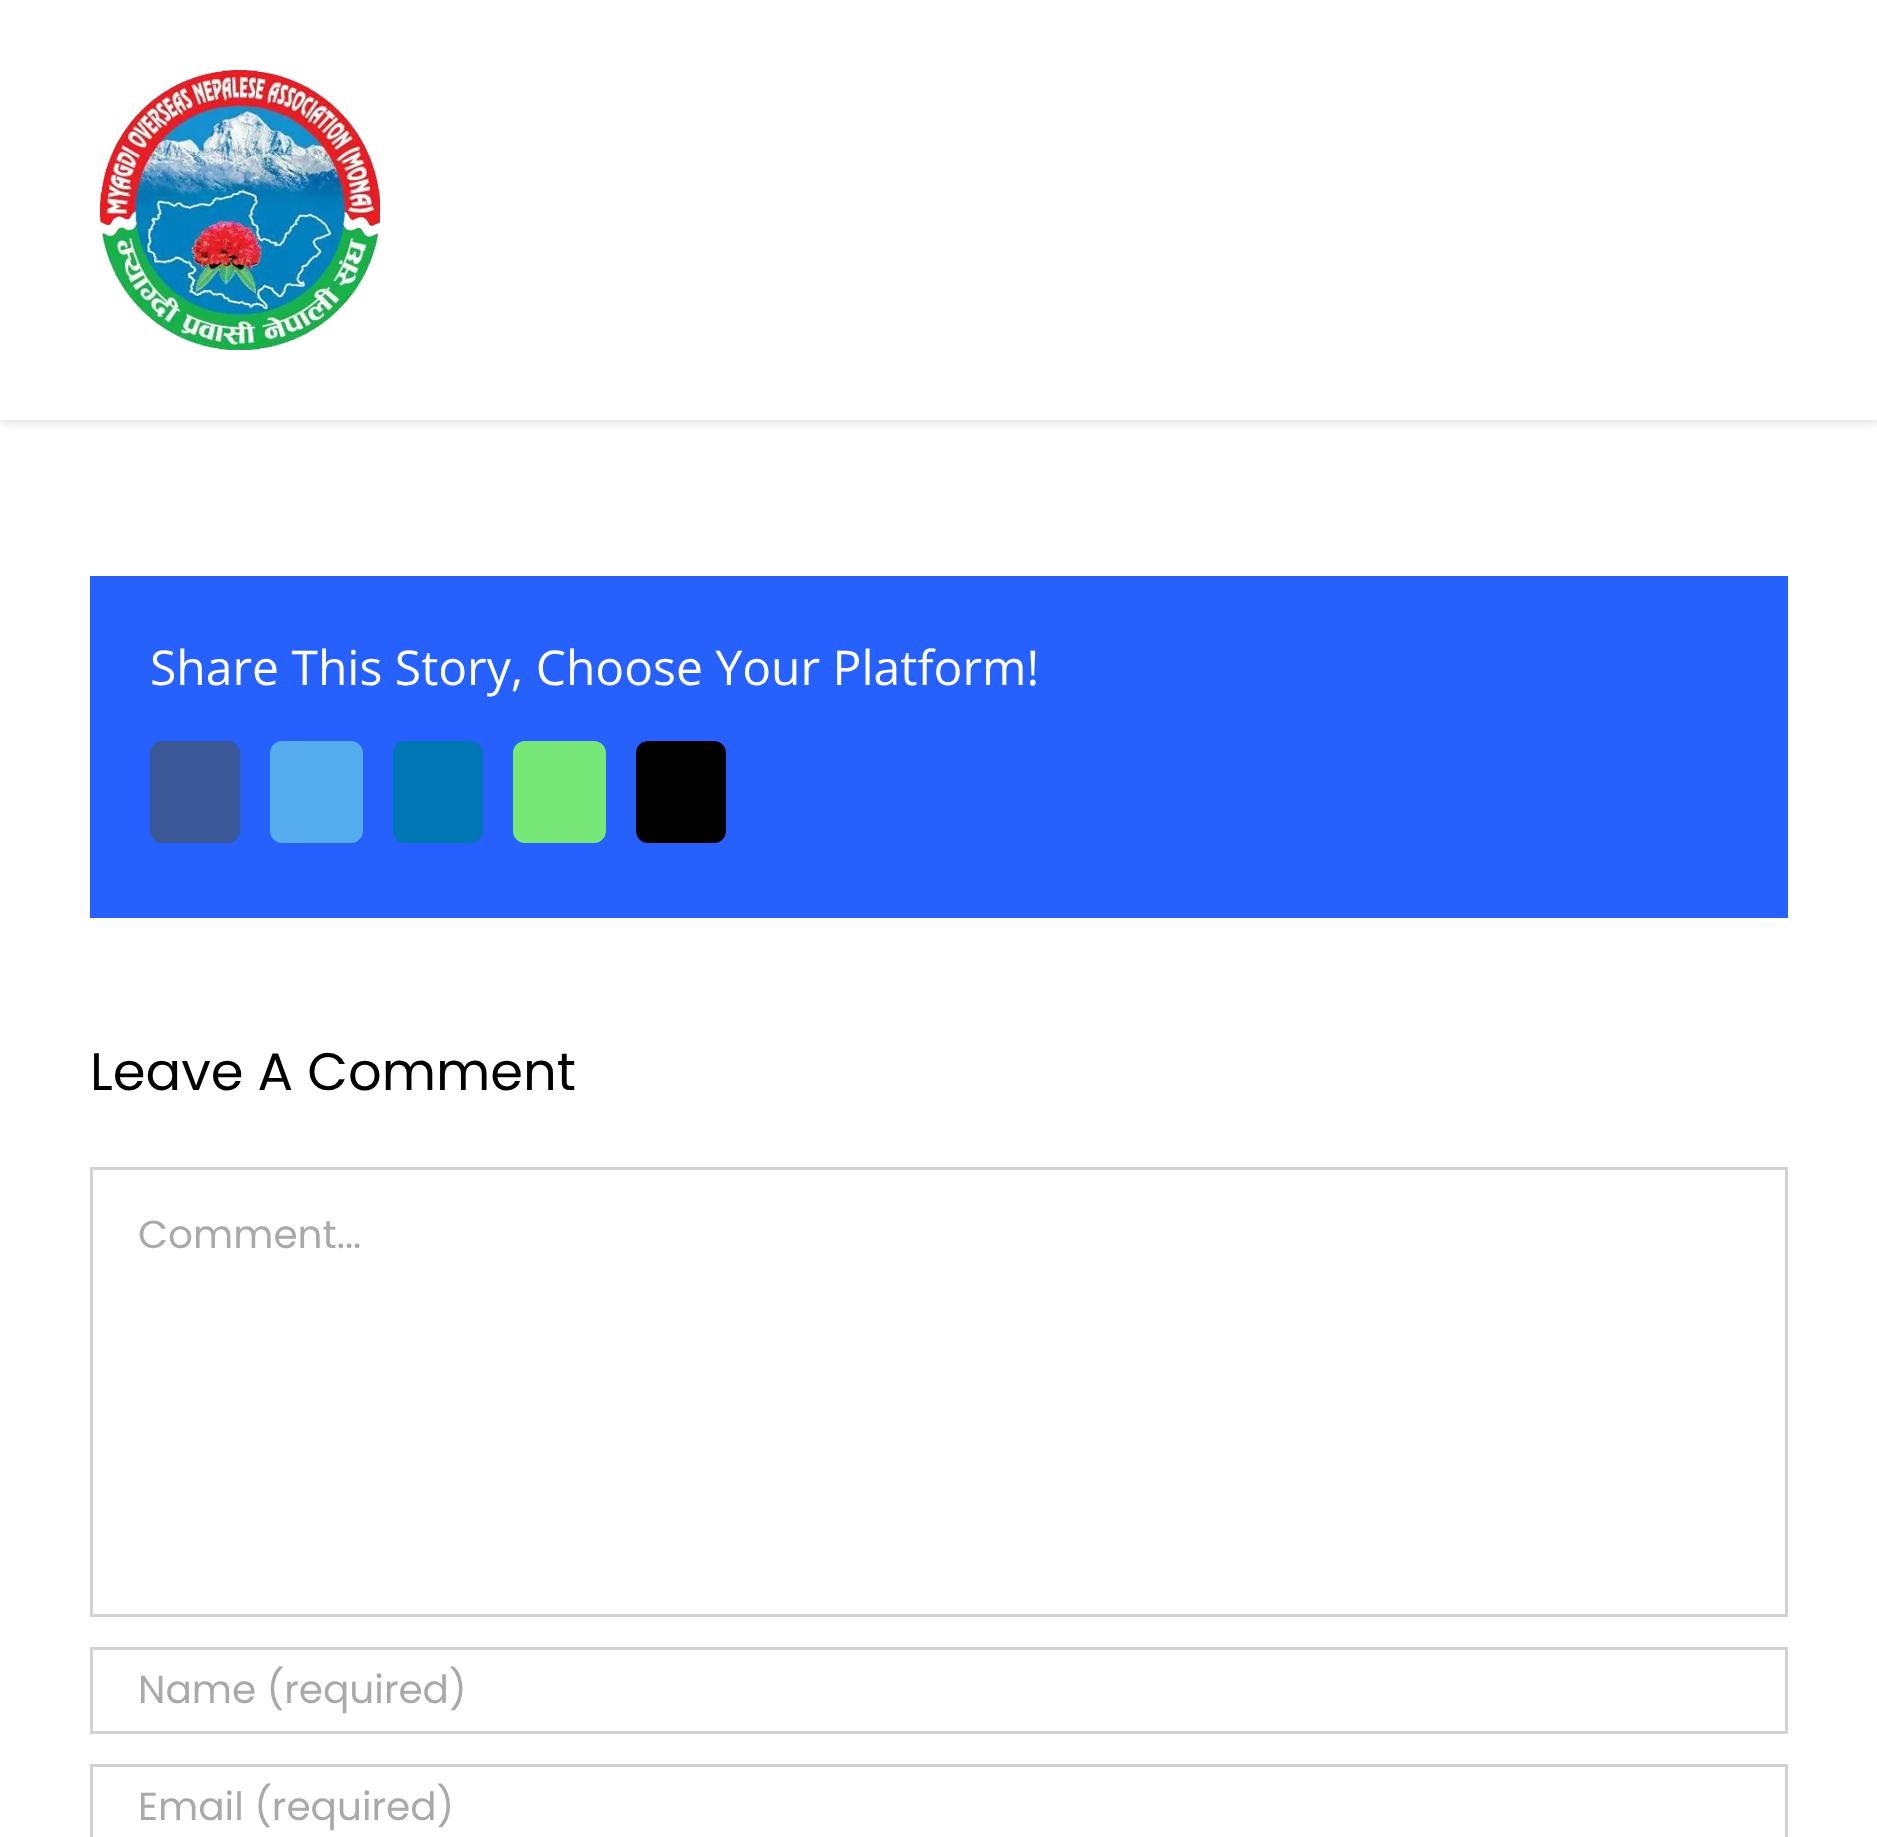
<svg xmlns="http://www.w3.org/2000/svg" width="1877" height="1837">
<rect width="100%" height="100%" fill="#fff"/>
<rect y="3" width="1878" height="420" fill="#0000001f" filter="blur(4.5px)"/>
<rect width="1877" height="420" fill="#fff"/>
<image x="100" y="70" width="280" height="280" href="media/1.png"/>
<rect x="90" y="576" width="1698" height="342" fill="#2660fd"/>
<text x="150" y="685" style="font-family:Open Sans;font-size:48px;fill:#fff">Share This Story, Choose Your Platform!</text>
<rect x="151.5" y="742.5" width="87" height="99" rx="10.5" fill="#3b5998" stroke="#3b5998" stroke-width="3"/>
<rect x="271.5" y="742.5" width="90" height="99" rx="10.5" fill="#55acee" stroke="#55acee" stroke-width="3"/>
<rect x="394.5" y="742.5" width="87" height="99" rx="10.5" fill="#0077b5" stroke="#0077b5" stroke-width="3"/>
<rect x="514.5" y="742.5" width="90" height="99" rx="10.5" fill="#77e878" stroke="#77e878" stroke-width="3"/>
<rect x="637.5" y="742.5" width="87" height="99" rx="10.5" fill="#000" stroke="#000" stroke-width="3"/>
<text x="90" y="1090" style="font-family:Poppins;font-size:52.75px;fill:#000">Leave A Comment</text>
<rect x="91.5" y="1168.5" width="1695" height="447" fill="none" stroke="#d2d2d2" stroke-width="3"/>
<text x="138" y="1248" style="font-family:Poppins;font-size:39px;fill:#aaa9a9">Comment...</text>
<rect x="91.5" y="1648.5" width="1695" height="84" fill="none" stroke="#d2d2d2" stroke-width="3"/>
<text x="138" y="1703" style="font-family:Poppins;font-size:39px;fill:#aaa9a9">Name (required)</text>
<rect x="91.5" y="1765.5" width="1695" height="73" fill="none" stroke="#d2d2d2" stroke-width="3"/>
<text x="138" y="1820" style="font-family:Poppins;font-size:39px;fill:#aaa9a9">Email (required)</text>
</svg>
